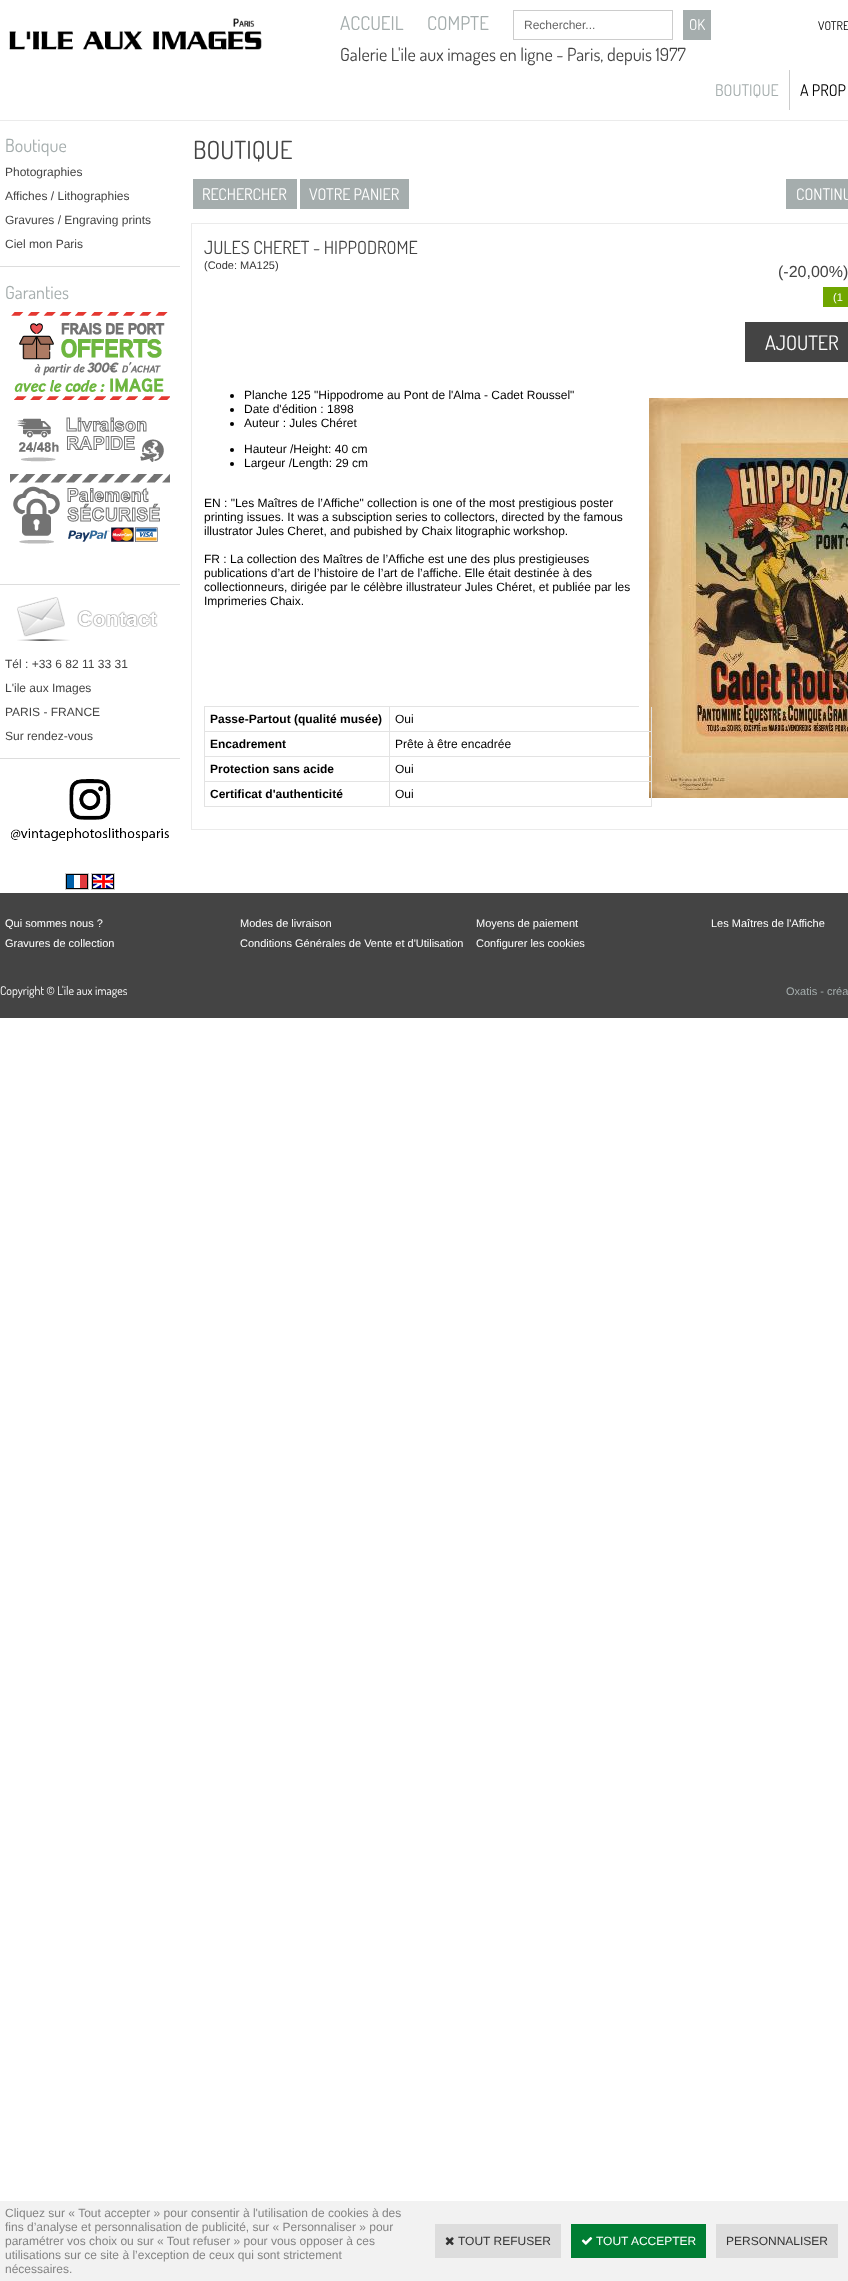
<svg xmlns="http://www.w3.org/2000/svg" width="848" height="2281">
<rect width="100%" height="100%" fill="#fff"/>
<rect y="120" width="848" height="1" fill="#ebebeb"/>
<image x="9" y="18" width="253" height="32" href="media/1.png"/>
<text x="340" y="30" style="font-family:Dosis;font-size:19px;fill:#a5adad">ACCUEIL</text>
<text x="427" y="30" style="font-family:Dosis;font-size:19px;fill:#a5adad">COMPTE</text>
<rect x="513.5" y="10.5" width="159" height="29" fill="none" stroke="#ccc"/>
<text x="524" y="29" style="font-family:Liberation Sans;font-size:12px;fill:#666">Rechercher...</text>
<rect x="683" y="10" width="28" height="30" fill="#a5adad"/>
<text x="689" y="30" style="font-family:Dosis;font-size:15px;fill:#fff">OK</text>
<text x="818" y="30" style="font-family:Dosis;font-size:12px;fill:#000">VOTRE</text>
<text x="340" y="61" style="font-family:Dosis;font-size:18px;fill:#444">Galerie L'ile aux images en ligne - Paris, depuis 1977</text>
<rect x="789" y="70" width="1" height="40" fill="#ccc"/>
<text x="715" y="96" style="font-family:Dosis;font-size:16px;fill:#a5adad">BOUTIQUE</text>
<text x="800" y="96" style="font-family:Dosis;font-size:16px;fill:#000">A PROP</text>
<text x="5" y="152" style="font-family:Dosis;font-size:18px;fill:#a5adad">Boutique</text>
<text x="5" y="176" style="font-family:Liberation Sans;font-size:12px;fill:#444">Photographies</text>
<text x="5" y="200" style="font-family:Liberation Sans;font-size:12px;fill:#444">Affiches / Lithographies</text>
<text x="5" y="224" style="font-family:Liberation Sans;font-size:12px;fill:#444">Gravures / Engraving prints</text>
<text x="5" y="248" style="font-family:Liberation Sans;font-size:12px;fill:#444">Ciel mon Paris</text>
<rect y="266" width="180" height="1" fill="#ddd"/>
<text x="5" y="299" style="font-family:Dosis;font-size:18px;fill:#a5adad">Garanties</text>
<image x="11" y="312" width="159" height="88" href="media/2.png"/>
<image x="17" y="417" width="147" height="45" href="media/3.png"/>
<image x="10" y="474" width="160" height="70" href="media/4.png"/>
<rect y="584" width="180" height="1" fill="#ddd"/>
<image x="17" y="597" width="141" height="44" href="media/5.png"/>
<text x="5" y="668" style="font-family:Liberation Sans;font-size:12px;fill:#444">Tél : +33 6 82 11 33 31</text>
<text x="5" y="692" style="font-family:Liberation Sans;font-size:12px;fill:#444">L'ile aux Images</text>
<text x="5" y="716" style="font-family:Liberation Sans;font-size:12px;fill:#444">PARIS - FRANCE</text>
<text x="5" y="740" style="font-family:Liberation Sans;font-size:12px;fill:#444">Sur rendez-vous</text>
<rect y="758" width="180" height="1" fill="#ddd"/>
<image x="11" y="779" width="158" height="62" href="media/6.png"/>
<image x="66" y="874" width="22" height="15" href="media/7.png"/>
<rect x="65.5" y="873.5" width="23" height="16" fill="none" stroke="#ccc"/>
<image x="92" y="874" width="22" height="15" href="media/8.png"/>
<rect x="91.5" y="873.5" width="23" height="16" fill="none" stroke="#ccc"/>
<text x="193" y="159" style="font-family:Dosis;font-size:25px;fill:#444">BOUTIQUE</text>
<rect x="193" y="179" width="104" height="30" fill="#a5adad"/>
<text x="202" y="200" style="font-family:Dosis;font-size:16px;fill:#fff">RECHERCHER</text>
<rect x="300" y="179" width="109" height="30" fill="#a5adad"/>
<text x="309" y="200" style="font-family:Dosis;font-size:16px;fill:#fff">VOTRE PANIER</text>
<rect x="786" y="179" width="62" height="30" fill="#a5adad"/>
<text x="796" y="200" style="font-family:Dosis;font-size:16px;fill:#fff">CONTINU</text>
<rect x="191.5" y="223.5" width="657" height="606" fill="none" stroke="#ebebeb"/>
<text x="204" y="254" style="font-family:Dosis;font-size:18px;fill:#444">JULES CHERET - HIPPODROME</text>
<text x="204" y="269" style="font-family:Liberation Sans;font-size:11px;fill:#333">(Code: MA125)</text>
<text x="778" y="277" style="font-family:Liberation Sans;font-size:16px;fill:#444">(-20,00%)</text>
<rect x="823" y="287" width="25" height="20" fill="#6fa600"/>
<text x="833" y="301" style="font-family:Liberation Sans;font-size:11px;fill:#fff">(1</text>
<rect x="745" y="322" width="103" height="40" fill="#444"/>
<text x="765" y="350" style="font-family:Dosis;font-size:20px;fill:#fff">AJOUTER</text>
<circle cx="232" cy="396" r="2" fill="#000"/>
<text x="244" y="399" style="font-family:Liberation Sans;font-size:12px;fill:#000">Planche 125 "Hippodrome au Pont de l'Alma - Cadet Roussel"</text>
<circle cx="232" cy="410" r="2" fill="#000"/>
<text x="244" y="413" style="font-family:Liberation Sans;font-size:12px;fill:#000">Date d'édition : 1898</text>
<circle cx="232" cy="424" r="2" fill="#000"/>
<text x="244" y="427" style="font-family:Liberation Sans;font-size:12px;fill:#000">Auteur : Jules Chéret</text>
<circle cx="232" cy="450" r="2" fill="#000"/>
<text x="244" y="453" style="font-family:Liberation Sans;font-size:12px;fill:#000">Hauteur /Height: 40 cm</text>
<circle cx="232" cy="464" r="2" fill="#000"/>
<text x="244" y="467" style="font-family:Liberation Sans;font-size:12px;fill:#000">Largeur /Length: 29 cm</text>
<text x="204" y="507" style="font-family:Liberation Sans;font-size:12px;fill:#000">EN : "Les Maîtres de l’Affiche" collection is one of the most prestigious poster</text>
<text x="204" y="521" style="font-family:Liberation Sans;font-size:12px;fill:#000">printing issues. It was a subsciption series to collectors, directed by the famous</text>
<text x="204" y="535" style="font-family:Liberation Sans;font-size:12px;fill:#000">illustrator Jules Cheret, and pubished by Chaix litographic workshop.</text>
<text x="204" y="563" style="font-family:Liberation Sans;font-size:12px;fill:#000">FR : La collection des Maîtres de l’Affiche est une des plus prestigieuses</text>
<text x="204" y="577" style="font-family:Liberation Sans;font-size:12px;fill:#000">publications d’art de l’histoire de l’art de l’affiche. Elle était destinée à des</text>
<text x="204" y="591" style="font-family:Liberation Sans;font-size:12px;fill:#000">collectionneurs, dirigée par le célèbre illustrateur Jules Chéret, et publiée par les</text>
<text x="204" y="605" style="font-family:Liberation Sans;font-size:12px;fill:#000">Imprimeries Chaix.</text>
<image x="649" y="398" width="199" height="400" href="media/9.png"/>
<rect x="204" y="706" width="435" height="1" fill="#e3e3e3"/>
<rect x="204" y="731" width="185" height="1" fill="#e3e3e3"/>
<rect x="204" y="707" width="1" height="25" fill="#e3e3e3"/>
<text x="210" y="723" style="font-family:Liberation Sans;font-size:12px;font-weight:bold;fill:#000">Passe-Partout (qualité musée)</text>
<rect x="651" y="707" width="1" height="100" fill="#e3e3e3"/>
<rect x="389" y="731" width="263" height="1" fill="#e3e3e3"/>
<rect x="389" y="707" width="1" height="25" fill="#e3e3e3"/>
<text x="395" y="723" style="font-family:Liberation Sans;font-size:12px;fill:#000">Oui</text>
<rect x="204" y="756" width="448" height="1" fill="#e3e3e3"/>
<rect x="204" y="732" width="1" height="25" fill="#e3e3e3"/>
<text x="210" y="748" style="font-family:Liberation Sans;font-size:12px;font-weight:bold;fill:#000">Encadrement</text>
<rect x="389" y="732" width="1" height="25" fill="#e3e3e3"/>
<text x="395" y="748" style="font-family:Liberation Sans;font-size:12px;fill:#000">Prête à être encadrée</text>
<rect x="204" y="781" width="448" height="1" fill="#e3e3e3"/>
<rect x="204" y="757" width="1" height="25" fill="#e3e3e3"/>
<text x="210" y="773" style="font-family:Liberation Sans;font-size:12px;font-weight:bold;fill:#000">Protection sans acide</text>
<rect x="389" y="757" width="1" height="25" fill="#e3e3e3"/>
<text x="395" y="773" style="font-family:Liberation Sans;font-size:12px;fill:#000">Oui</text>
<rect x="204" y="806" width="448" height="1" fill="#e3e3e3"/>
<rect x="204" y="782" width="1" height="25" fill="#e3e3e3"/>
<text x="210" y="798" style="font-family:Liberation Sans;font-size:12px;font-weight:bold;fill:#000">Certificat d'authenticité</text>
<rect x="389" y="782" width="1" height="25" fill="#e3e3e3"/>
<text x="395" y="798" style="font-family:Liberation Sans;font-size:12px;fill:#000">Oui</text>
<rect y="893" width="848" height="125" fill="#444"/>
<text x="5" y="927" style="font-family:Liberation Sans;font-size:11px;fill:#fff">Qui sommes nous ?</text>
<text x="240" y="927" style="font-family:Liberation Sans;font-size:11px;fill:#fff">Modes de livraison</text>
<text x="476" y="927" style="font-family:Liberation Sans;font-size:11px;fill:#fff">Moyens de paiement</text>
<text x="711" y="927" style="font-family:Liberation Sans;font-size:11px;fill:#fff">Les Maîtres de l'Affiche</text>
<text x="5" y="947" style="font-family:Liberation Sans;font-size:11px;fill:#fff">Gravures de collection</text>
<text x="240" y="947" style="font-family:Liberation Sans;font-size:11px;fill:#fff">Conditions Générales de Vente et d'Utilisation</text>
<text x="476" y="947" style="font-family:Liberation Sans;font-size:11px;fill:#fff">Configurer les cookies</text>
<text x="0" y="995" style="font-family:Dosis;font-size:12px;fill:#fff">Copyright © L'ile aux images</text>
<text x="786" y="995" style="font-family:Liberation Sans;font-size:11px;fill:#a5adad">Oxatis - créa</text>
<rect y="2201" width="848" height="80" fill="#f2f2f2"/>
<text x="5" y="2217" style="font-family:Liberation Sans;font-size:12px;fill:#848484">Cliquez sur « Tout accepter » pour consentir à l'utilisation de cookies à des</text>
<text x="5" y="2231" style="font-family:Liberation Sans;font-size:12px;fill:#848484">fins d’analyse et personnalisation de publicité, sur « Personnaliser » pour</text>
<text x="5" y="2245" style="font-family:Liberation Sans;font-size:12px;fill:#848484">paramétrer vos choix ou sur « Tout refuser » pour vous opposer à ces</text>
<text x="5" y="2259" style="font-family:Liberation Sans;font-size:12px;fill:#848484">utilisations sur ce site à l’exception de ceux qui sont strictement</text>
<text x="5" y="2273" style="font-family:Liberation Sans;font-size:12px;fill:#848484">nécessaires.</text>
<rect x="435" y="2224" width="126" height="34" fill="#ddd"/>
<image x="445" y="2237" width="9" height="9" href="media/10.png"/>
<text x="458" y="2245" style="font-family:Liberation Sans;font-size:12px;fill:#333">TOUT REFUSER</text>
<rect x="571" y="2224" width="135" height="34" fill="#007e33"/>
<image x="581" y="2237" width="12" height="8" href="media/11.png"/>
<text x="596" y="2245" style="font-family:Liberation Sans;font-size:12px;fill:#fff">TOUT ACCEPTER</text>
<rect x="716" y="2224" width="122" height="34" fill="#ddd"/>
<text x="726" y="2245" style="font-family:Liberation Sans;font-size:12px;fill:#333">PERSONNALISER</text>
</svg>
